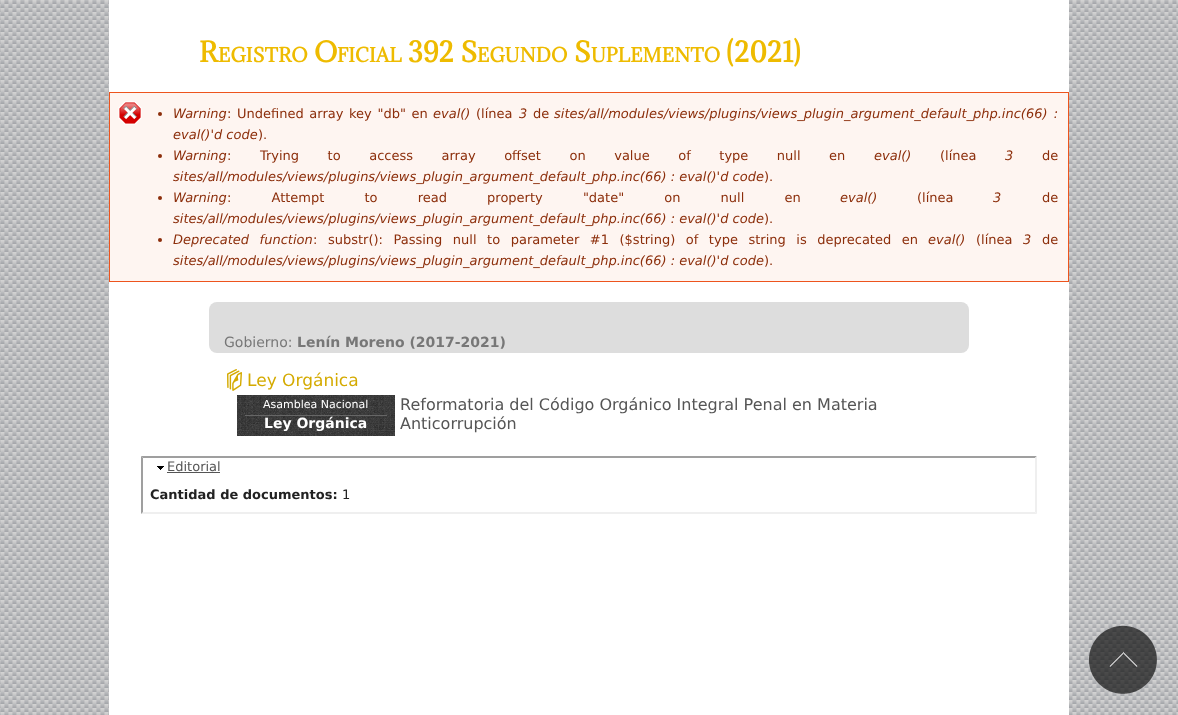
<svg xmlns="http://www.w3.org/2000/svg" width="1178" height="715">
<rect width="100%" height="100%" fill="#fff"/>
<image x="0" y="0" width="1178" height="715" href="media/1.png"/>
<rect x="109" width="960" height="715" fill="#fff"/>
<text x="199" y="62" style="font-family:Adamina;font-size:26px;font-weight:bold;fill:#eb0">R</text>
<text x="218" y="62" style="font-family:Adamina;font-size:18.25px;font-weight:bold;fill:#eb0">EGISTRO</text>
<text x="314" y="62" style="font-family:Adamina;font-size:26px;font-weight:bold;fill:#eb0">O</text>
<text x="337" y="62" style="font-family:Adamina;font-size:18.25px;font-weight:bold;fill:#eb0">FICIAL</text>
<text x="408" y="62" style="font-family:Adamina;font-size:26px;font-weight:bold;fill:#eb0">392 S</text>
<text x="477" y="62" style="font-family:Adamina;font-size:18.25px;font-weight:bold;fill:#eb0">EGUNDO</text>
<text x="574" y="62" style="font-family:Adamina;font-size:26px;font-weight:bold;fill:#eb0">S</text>
<text x="591" y="62" style="font-family:Adamina;font-size:18.25px;font-weight:bold;fill:#eb0">UPLEMENTO</text>
<text x="726" y="62" style="font-family:Adamina;font-size:26px;font-weight:bold;fill:#eb0">(2021)</text>
<rect x="110" y="93" width="958" height="188" fill="#fef5f1"/>
<image x="118" y="101" width="24" height="24" href="media/2.png"/>
<rect x="109.5" y="92.5" width="959" height="189" fill="none" stroke="#ed541d"/>
<circle cx="160" cy="114" r="2" fill="#8c2e0b"/>
<text x="173" y="118" style="font-family:DejaVu Sans;font-size:13px;font-style:italic;fill:#8c2e0b">Warning</text>
<text x="227" y="118" word-spacing="1.5" style="font-family:DejaVu Sans;font-size:13px;fill:#8c2e0b">: Undefined array key "db" en</text>
<text x="433" y="118" style="font-family:DejaVu Sans;font-size:13px;font-style:italic;fill:#8c2e0b">eval()</text>
<text x="476" y="118" style="font-family:DejaVu Sans;font-size:13px;fill:#8c2e0b">(línea</text>
<text x="519" y="118" style="font-family:DejaVu Sans;font-size:13px;font-style:italic;fill:#8c2e0b">3</text>
<text x="533" y="118" style="font-family:DejaVu Sans;font-size:13px;fill:#8c2e0b">de</text>
<text x="554" y="118" word-spacing="2" style="font-family:DejaVu Sans;font-size:13px;font-style:italic;fill:#8c2e0b">sites/all/modules/views/plugins/views_plugin_argument_default_php.inc(66) :</text>
<text x="173" y="139" style="font-family:DejaVu Sans;font-size:13px;font-style:italic;fill:#8c2e0b">eval()'d code</text>
<text x="258" y="139" style="font-family:DejaVu Sans;font-size:13px;fill:#8c2e0b">).</text>
<circle cx="160" cy="156" r="2" fill="#8c2e0b"/>
<text x="173" y="160" style="font-family:DejaVu Sans;font-size:13px;font-style:italic;fill:#8c2e0b">Warning</text>
<text x="227" y="160" word-spacing="24.4" style="font-family:DejaVu Sans;font-size:13px;fill:#8c2e0b">: Trying to access array offset on value of type null en</text>
<text x="874" y="160" style="font-family:DejaVu Sans;font-size:13px;font-style:italic;fill:#8c2e0b">eval()</text>
<text x="940" y="160" style="font-family:DejaVu Sans;font-size:13px;fill:#8c2e0b">(línea</text>
<text x="1005" y="160" style="font-family:DejaVu Sans;font-size:13px;font-style:italic;fill:#8c2e0b">3</text>
<text x="1042" y="160" style="font-family:DejaVu Sans;font-size:13px;fill:#8c2e0b">de</text>
<text x="173" y="181" style="font-family:DejaVu Sans;font-size:13px;font-style:italic;fill:#8c2e0b">sites/all/modules/views/plugins/views_plugin_argument_default_php.inc(66) : eval()'d code</text>
<text x="764" y="181" style="font-family:DejaVu Sans;font-size:13px;fill:#8c2e0b">).</text>
<circle cx="160" cy="198" r="2" fill="#8c2e0b"/>
<text x="173" y="202" style="font-family:DejaVu Sans;font-size:13px;font-style:italic;fill:#8c2e0b">Warning</text>
<text x="227" y="202" word-spacing="36" style="font-family:DejaVu Sans;font-size:13px;fill:#8c2e0b">: Attempt to read property "date" on null en</text>
<text x="840" y="202" style="font-family:DejaVu Sans;font-size:13px;font-style:italic;fill:#8c2e0b">eval()</text>
<text x="917" y="202" style="font-family:DejaVu Sans;font-size:13px;fill:#8c2e0b">(línea</text>
<text x="993" y="202" style="font-family:DejaVu Sans;font-size:13px;font-style:italic;fill:#8c2e0b">3</text>
<text x="1042" y="202" style="font-family:DejaVu Sans;font-size:13px;fill:#8c2e0b">de</text>
<text x="173" y="223" style="font-family:DejaVu Sans;font-size:13px;font-style:italic;fill:#8c2e0b">sites/all/modules/views/plugins/views_plugin_argument_default_php.inc(66) : eval()'d code</text>
<text x="764" y="223" style="font-family:DejaVu Sans;font-size:13px;fill:#8c2e0b">).</text>
<circle cx="160" cy="240" r="2" fill="#8c2e0b"/>
<text x="173" y="244" word-spacing="6.4" style="font-family:DejaVu Sans;font-size:13px;font-style:italic;fill:#8c2e0b">Deprecated function</text>
<text x="313" y="244" word-spacing="6.4" style="font-family:DejaVu Sans;font-size:13px;fill:#8c2e0b">: substr(): Passing null to parameter #1 ($string) of type string is deprecated en</text>
<text x="928" y="244" style="font-family:DejaVu Sans;font-size:13px;font-style:italic;fill:#8c2e0b">eval()</text>
<text x="976" y="244" style="font-family:DejaVu Sans;font-size:13px;fill:#8c2e0b">(línea</text>
<text x="1023" y="244" style="font-family:DejaVu Sans;font-size:13px;font-style:italic;fill:#8c2e0b">3</text>
<text x="1042" y="244" style="font-family:DejaVu Sans;font-size:13px;fill:#8c2e0b">de</text>
<text x="173" y="265" style="font-family:DejaVu Sans;font-size:13px;font-style:italic;fill:#8c2e0b">sites/all/modules/views/plugins/views_plugin_argument_default_php.inc(66) : eval()'d code</text>
<text x="764" y="265" style="font-family:DejaVu Sans;font-size:13px;fill:#8c2e0b">).</text>
<rect x="209" y="302" width="760" height="51" rx="8" fill="#ddd"/>
<text x="224" y="347" style="font-family:DejaVu Sans;font-size:14px;fill:#777">Gobierno:</text>
<text x="297" y="347" style="font-family:DejaVu Sans;font-size:14px;font-weight:bold;fill:#777">Lenín Moreno (2017-2021)</text>
<image x="227" y="369" width="15" height="22" href="media/3.png"/>
<text x="247" y="386" style="font-family:DejaVu Sans;font-size:17px;fill:#d4aa00">Ley Orgánica</text>
<image x="237" y="395" width="158" height="41" href="media/4.png"/>
<rect x="245" y="415" width="142" height="1" fill="#666"/>
<text x="263" y="408" style="font-family:DejaVu Sans;font-size:11px;fill:#fff">Asamblea Nacional</text>
<text x="264" y="428" style="font-family:DejaVu Sans;font-size:14px;font-weight:bold;fill:#fff">Ley Orgánica</text>
<text x="400" y="410" style="font-family:DejaVu Sans;font-size:16px;fill:#555">Reformatoria del Código Orgánico Integral Penal en Materia</text>
<text x="400" y="429" style="font-family:DejaVu Sans;font-size:16px;fill:#555">Anticorrupción</text>
<path d="M141 456h896l-2 2h-892z" fill="#9f9f9f"/>
<path d="M1037 456v58l-2-2v-54z" fill="#efefef"/>
<path d="M1037 514h-896l2-2h892z" fill="#efefef"/>
<path d="M141 514v-58l2 2v54z" fill="#9f9f9f"/>
<image x="157" y="466" width="7" height="4" href="media/5.png"/>
<text x="167" y="471" style="font-family:DejaVu Sans;font-size:13px;fill:#555">Editorial</text>
<rect x="167" y="472" width="53" height="1" fill="#555"/>
<text x="150" y="499" style="font-family:DejaVu Sans;font-size:13px;font-weight:bold;fill:#222">Cantidad de documentos:</text>
<text x="342" y="499" style="font-family:DejaVu Sans;font-size:13px;fill:#222">1</text>
<image x="1088" y="625" width="69" height="69" href="media/6.png"/>
</svg>
